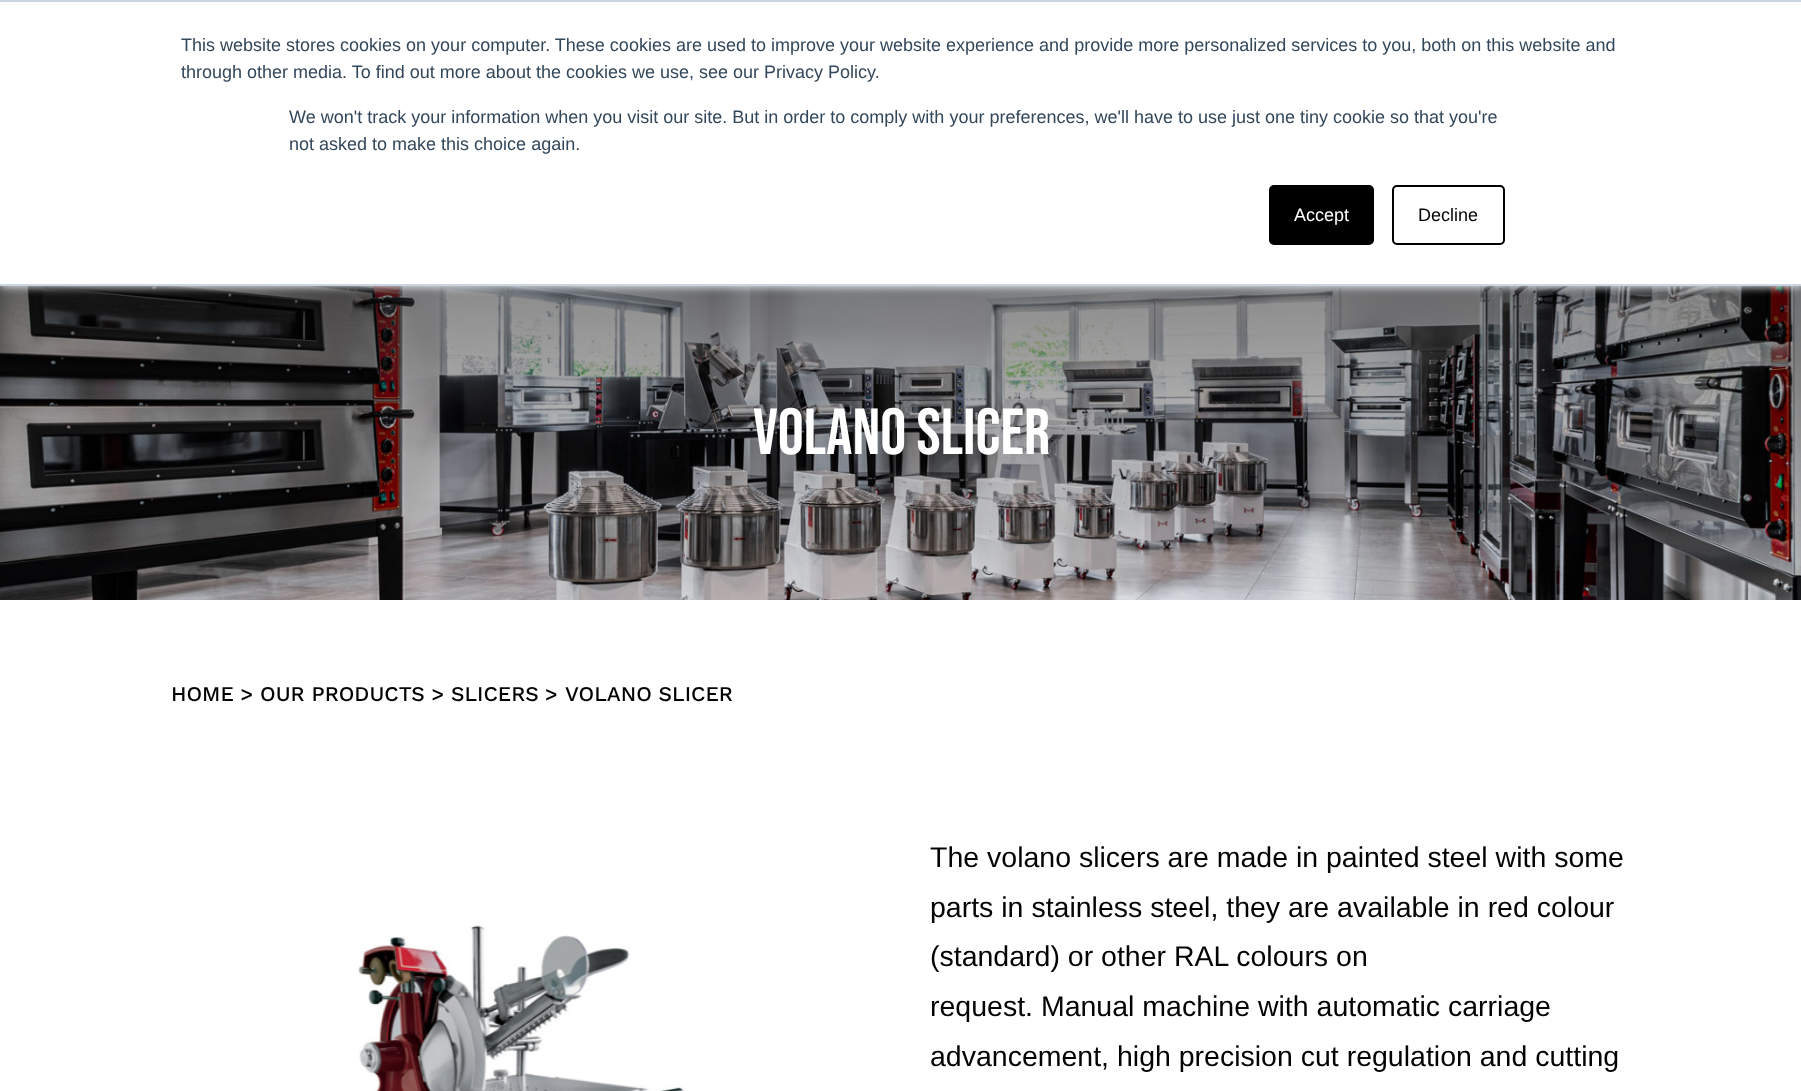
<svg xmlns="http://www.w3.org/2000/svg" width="1801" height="1091">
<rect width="100%" height="100%" fill="#fff"/>
<image x="0" y="286" width="1801" height="314" href="media/1.png"/>
<rect y="2" width="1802" height="285" fill="#eaf0f6" filter="blur(4px)"/>
<rect y="2" width="1801" height="282" fill="#fff"/>
<rect width="1801" height="2" fill="#cbd6e2"/>
<rect y="284" width="1801" height="2" fill="#cbd6e2"/>
<text x="181" y="51" style="font-family:Liberation Sans;font-size:18px;fill:#33475b">This website stores cookies on your computer. These cookies are used to improve your website experience and provide more personalized services to you, both on this website and</text>
<text x="181" y="78" style="font-family:Liberation Sans;font-size:18px;fill:#33475b">through other media. To find out more about the cookies we use, see our Privacy Policy.</text>
<text x="289" y="123" style="font-family:Liberation Sans;font-size:18px;fill:#33475b">We won't track your information when you visit our site. But in order to comply with your preferences, we'll have to use just one tiny cookie so that you're</text>
<text x="289" y="150" style="font-family:Liberation Sans;font-size:18px;fill:#33475b">not asked to make this choice again.</text>
<rect x="1270" y="186" width="103" height="58" rx="4" fill="#000" stroke="#000" stroke-width="2"/>
<text x="1294" y="221" style="font-family:Liberation Sans;font-size:18px;fill:#fff">Accept</text>
<rect x="1393" y="186" width="111" height="58" rx="4" fill="none" stroke="#000" stroke-width="2"/>
<text x="1418" y="221" style="font-family:Liberation Sans;font-size:18px;fill:#030303">Decline</text>
<text x="753" y="454" style="font-family:Bebas Neue;font-size:65px;fill:#fff">VOLANO SLICER</text>
<text x="171" y="701" style="font-family:Work Sans;font-size:21px;font-weight:500;fill:#030303">HOME &gt; OUR PRODUCTS &gt; SLICERS</text>
<text x="545" y="701" style="font-family:Work Sans;font-size:21px;font-weight:500;fill:#030303">&gt;</text>
<text x="565" y="701" style="font-family:Work Sans;font-size:21px;font-weight:500;fill:#030303">VOLANO SLICER</text>
<image x="358" y="925" width="327" height="166" href="media/2.png"/>
<text x="930" y="867" style="font-family:Liberation Sans;font-size:28.5px;fill:#030303">The volano slicers are made in painted steel with some</text>
<text x="930" y="917" style="font-family:Liberation Sans;font-size:28.5px;fill:#030303">parts in stainless steel, they are available in red colour</text>
<text x="930" y="966" style="font-family:Liberation Sans;font-size:28.5px;fill:#030303">(standard) or other RAL colours on</text>
<text x="930" y="1016" style="font-family:Liberation Sans;font-size:28.5px;fill:#030303">request. Manual machine with automatic carriage</text>
<text x="930" y="1066" style="font-family:Liberation Sans;font-size:28.5px;fill:#030303">advancement, high precision cut regulation and cutting</text>
</svg>
